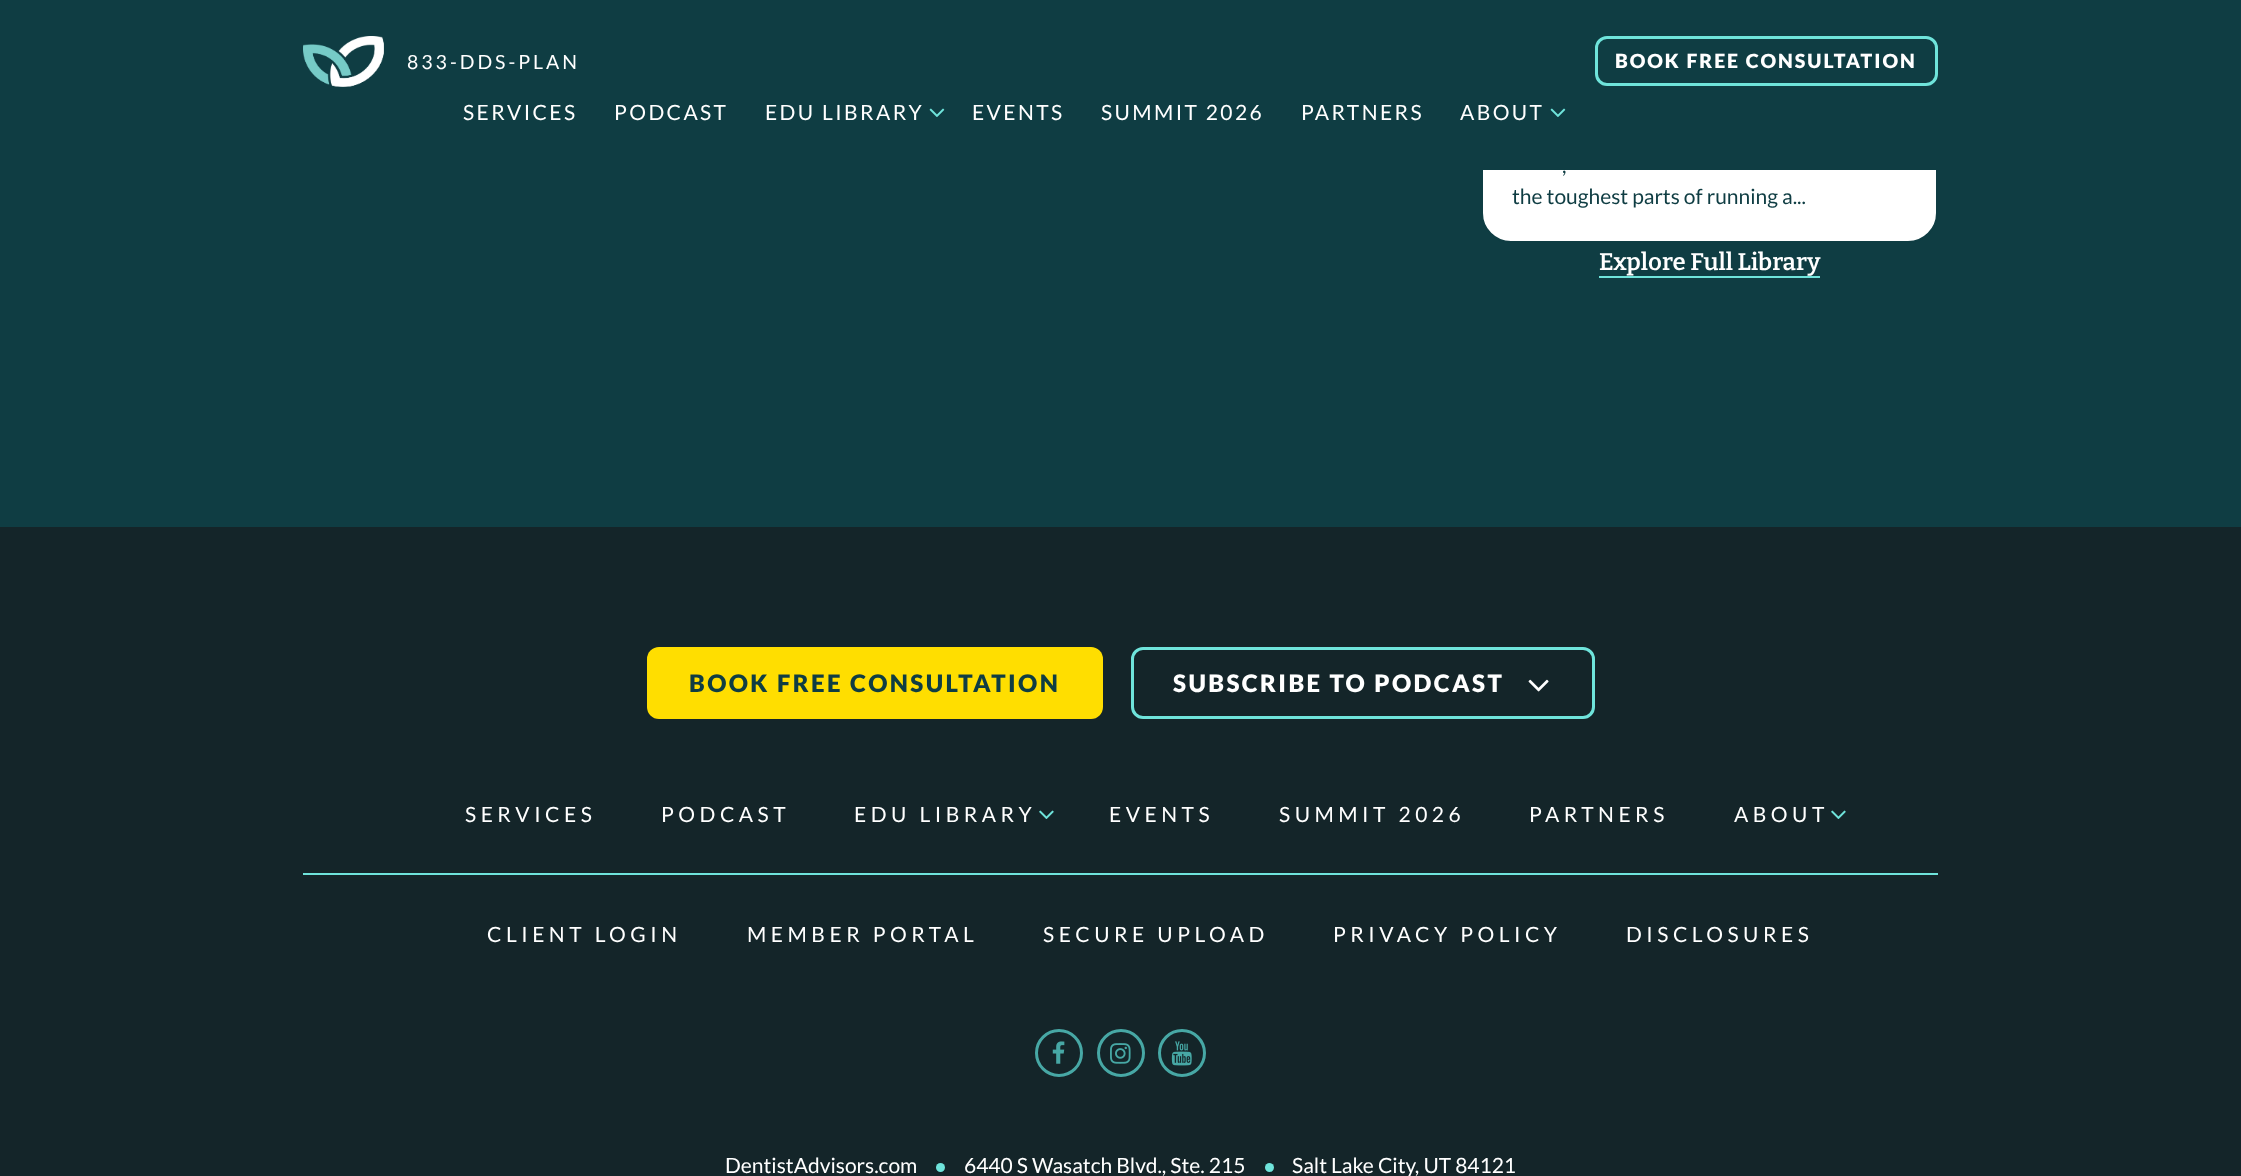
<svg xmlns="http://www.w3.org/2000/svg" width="2241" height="1176">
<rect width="100%" height="100%" fill="#0f3d43"/>
<rect x="1482" y="-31" width="455" height="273" rx="29" fill="#fff" stroke="#0f3d43" stroke-width="2"/>
<rect x="1483" width="453" height="170" fill="#0f3d43"/>
<image x="303" y="36" width="81" height="51" href="media/1.png"/>
<text x="407" y="69" style="font-family:Lato;font-size:19.5px;letter-spacing:3px;fill:#fff">833-DDS-PLAN</text>
<rect x="1596.5" y="37.5" width="340" height="47" rx="10.5" fill="none" stroke="#6fe4db" stroke-width="3"/>
<text x="1615" y="68" style="font-family:Lato;font-size:19.5px;font-weight:900;letter-spacing:1.95px;fill:#fff">BOOK FREE CONSULTATION</text>
<text x="463" y="120" style="font-family:Lato;font-size:21px;letter-spacing:2.4px;fill:#fff">SERVICES</text>
<text x="614" y="120" style="font-family:Lato;font-size:21px;letter-spacing:2.4px;fill:#fff">PODCAST</text>
<text x="765" y="120" style="font-family:Lato;font-size:21px;letter-spacing:2.4px;fill:#fff">EDU LIBRARY</text>
<image x="929" y="108" width="16" height="9" href="media/2.png"/>
<text x="972" y="120" style="font-family:Lato;font-size:21px;letter-spacing:2.4px;fill:#fff">EVENTS</text>
<text x="1101" y="120" style="font-family:Lato;font-size:21px;letter-spacing:2.4px;fill:#fff">SUMMIT 2026</text>
<text x="1301" y="120" style="font-family:Lato;font-size:21px;letter-spacing:2.4px;fill:#fff">PARTNERS</text>
<text x="1460" y="120" style="font-family:Lato;font-size:21px;letter-spacing:2.4px;fill:#fff">ABOUT</text>
<image x="1550" y="108" width="16" height="9" href="media/2.png"/>
<text x="1562" y="173" style="font-family:Lato;font-size:21px;fill:#0f3d43">,</text>
<text x="1512" y="204" style="font-family:Lato;font-size:21px;fill:#0f3d43">the toughest parts of running a...</text>
<text x="1599" y="270" style="font-family:Bitter;font-size:24px;font-weight:100;fill:#fff">Explore Full Library</text>
<rect x="1599" y="276" width="221" height="2" fill="#6fe4db"/>
<rect y="527" width="2241" height="649" fill="#142529"/>
<rect x="647" y="647" width="456" height="72" rx="12" fill="#ffde00"/>
<text x="689" y="692" style="font-family:Lato;font-size:24px;font-weight:900;letter-spacing:2.4px;fill:#0f3d43">BOOK FREE CONSULTATION</text>
<rect x="1132.5" y="648.5" width="461" height="69" rx="10.5" fill="none" stroke="#6fe4db" stroke-width="3"/>
<text x="1173" y="692" style="font-family:Lato;font-size:24px;font-weight:900;letter-spacing:2.4px;fill:#fff">SUBSCRIBE TO PODCAST</text>
<image x="1528" y="679" width="21" height="13" href="media/3.png"/>
<text x="465" y="822" style="font-family:Lato;font-size:21px;letter-spacing:4.5px;fill:#fff">SERVICES</text>
<text x="661" y="822" style="font-family:Lato;font-size:21px;letter-spacing:4.5px;fill:#fff">PODCAST</text>
<text x="854" y="822" style="font-family:Lato;font-size:21px;letter-spacing:4.5px;fill:#fff">EDU LIBRARY</text>
<image x="1039" y="810" width="15" height="9" href="media/4.png"/>
<text x="1109" y="822" style="font-family:Lato;font-size:21px;letter-spacing:4.5px;fill:#fff">EVENTS</text>
<text x="1279" y="822" style="font-family:Lato;font-size:21px;letter-spacing:4.5px;fill:#fff">SUMMIT 2026</text>
<text x="1529" y="822" style="font-family:Lato;font-size:21px;letter-spacing:4.5px;fill:#fff">PARTNERS</text>
<text x="1734" y="822" style="font-family:Lato;font-size:21px;letter-spacing:4.5px;fill:#fff">ABOUT</text>
<image x="1831" y="810" width="15" height="9" href="media/4.png"/>
<rect x="303" y="873" width="1635" height="2" fill="#6fe4db"/>
<text x="487" y="942" style="font-family:Lato;font-size:21px;letter-spacing:4.5px;fill:#fff">CLIENT LOGIN</text>
<text x="747" y="942" style="font-family:Lato;font-size:21px;letter-spacing:4.5px;fill:#fff">MEMBER PORTAL</text>
<text x="1043" y="942" style="font-family:Lato;font-size:21px;letter-spacing:4.5px;fill:#fff">SECURE UPLOAD</text>
<text x="1333" y="942" style="font-family:Lato;font-size:21px;letter-spacing:4.5px;fill:#fff">PRIVACY POLICY</text>
<text x="1626" y="942" style="font-family:Lato;font-size:21px;letter-spacing:4.5px;fill:#fff">DISCLOSURES</text>
<circle cx="1059" cy="1053" r="22.5" fill="none" stroke="#47a8a5" stroke-width="3"/>
<image x="1052" y="1041" width="13" height="23" href="media/5.png"/>
<circle cx="1121" cy="1053" r="22.5" fill="none" stroke="#47a8a5" stroke-width="3"/>
<image x="1110" y="1043" width="21" height="21" href="media/6.png"/>
<circle cx="1182" cy="1053" r="22.5" fill="none" stroke="#47a8a5" stroke-width="3"/>
<image x="1171" y="1041" width="21" height="25" href="media/7.png"/>
<text x="725" y="1173" style="font-family:Lato;font-size:21px;fill:#fff">DentistAdvisors.com</text>
<circle cx="940.5" cy="1167.5" r="4.5" fill="#6fe4db"/>
<text x="964" y="1173" style="font-family:Lato;font-size:21px;fill:#fff">6440 S Wasatch Blvd., Ste. 215</text>
<circle cx="1269.5" cy="1167.5" r="4.5" fill="#6fe4db"/>
<text x="1292" y="1173" style="font-family:Lato;font-size:21px;fill:#fff">Salt Lake City, UT 84121</text>
</svg>
